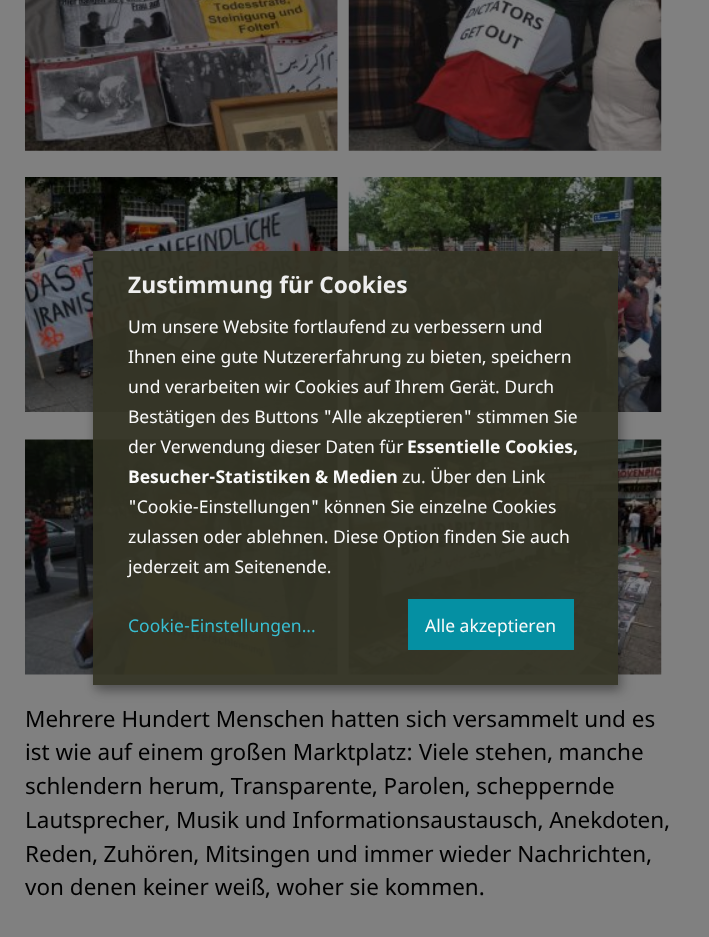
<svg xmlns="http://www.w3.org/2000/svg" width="709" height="937">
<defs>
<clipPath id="clip1"><path d="M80 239h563v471h-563zm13 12h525v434h-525z" clip-rule="evenodd"/></clipPath>
<clipPath id="clip2"><path d="M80 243h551v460h-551zm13 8h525v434h-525z" clip-rule="evenodd"/></clipPath>
</defs>
<rect width="100%" height="100%" fill="#808080"/>
<image x="25" y="177" width="313" height="235" href="media/3.png"/>
<image x="348" y="177" width="314" height="235" href="media/4.png"/>
<image x="25" y="439" width="313" height="236" href="media/5.png"/>
<image x="348" y="439" width="314" height="236" href="media/6.png"/>
<g clip-path="url(#clip1)">
<rect x="99" y="258" width="525" height="433" fill="#00000030" filter="blur(6px)"/>
</g>
<g clip-path="url(#clip2)">
<rect x="93" y="256" width="525" height="434" fill="#00000033" filter="blur(4px)"/>
</g>
<rect x="93" y="251" width="525" height="434" fill="#353526f2"/>
<text x="128" y="293" style="font-family:Noto Sans;font-size:22.75px;font-weight:bold;fill:#eee">Zustimmung für Cookies</text>
<text x="128" y="333" style="font-family:Noto Sans;font-size:17.5px;fill:#fafafa">Um unsere Website fortlaufend zu verbessern und</text>
<text x="128" y="363" style="font-family:Noto Sans;font-size:17.5px;fill:#fafafa">Ihnen eine gute Nutzererfahrung zu bieten, speichern</text>
<text x="128" y="393" style="font-family:Noto Sans;font-size:17.5px;fill:#fafafa">und verarbeiten wir Cookies auf Ihrem Gerät. Durch</text>
<text x="128" y="423" style="font-family:Noto Sans;font-size:17.5px;fill:#fafafa">Bestätigen des Buttons "Alle akzeptieren" stimmen Sie</text>
<text x="128" y="453" style="font-family:Noto Sans;font-size:17.5px;fill:#fafafa">der Verwendung dieser Daten für</text>
<text x="407" y="453" style="font-family:Noto Sans;font-size:17.5px;font-weight:bold;fill:#fafafa">Essentielle Cookies,</text>
<text x="128" y="483" style="font-family:Noto Sans;font-size:17.5px;font-weight:bold;fill:#fafafa">Besucher-Statistiken &amp; Medien</text>
<text x="402" y="483" style="font-family:Noto Sans;font-size:17.5px;fill:#fafafa">zu. Über den Link</text>
<text x="128" y="513" style="font-family:Noto Sans;font-size:17.5px;fill:#fafafa">"Cookie-Einstellungen" können Sie einzelne Cookies</text>
<text x="128" y="543" style="font-family:Noto Sans;font-size:17.5px;fill:#fafafa">zulassen oder ablehnen. Diese Option finden Sie auch</text>
<text x="128" y="573" style="font-family:Noto Sans;font-size:17.5px;fill:#fafafa">jederzeit am Seitenende.</text>
<text x="128" y="632" style="font-family:Noto Sans;font-size:17.5px;fill:#39bed1">Cookie-Einstellungen...</text>
<rect x="408" y="599" width="166" height="51" fill="#0590a3"/>
<text x="425" y="632" style="font-family:Noto Sans;font-size:17.5px;fill:#fafafa">Alle akzeptieren</text>
<image x="25" y="0" width="313" height="151" href="media/1.png"/>
<image x="348" y="0" width="314" height="151" href="media/2.png"/>
<text x="25" y="727" style="font-family:Noto Sans;font-size:22.5px;fill:#000">Mehrere Hundert Menschen hatten sich versammelt und es</text>
<text x="25" y="760" style="font-family:Noto Sans;font-size:22.5px;fill:#000">ist wie auf einem großen Marktplatz: Viele stehen, manche</text>
<text x="25" y="794" style="font-family:Noto Sans;font-size:22.5px;fill:#000">schlendern herum, Transparente, Parolen, scheppernde</text>
<text x="25" y="828" style="font-family:Noto Sans;font-size:22.5px;fill:#000">Lautsprecher, Musik und Informationsaustausch, Anekdoten,</text>
<text x="25" y="862" style="font-family:Noto Sans;font-size:22.5px;fill:#000">Reden, Zuhören, Mitsingen und immer wieder Nachrichten,</text>
<text x="25" y="895" style="font-family:Noto Sans;font-size:22.5px;fill:#000">von denen keiner weiß, woher sie kommen.</text>
</svg>
